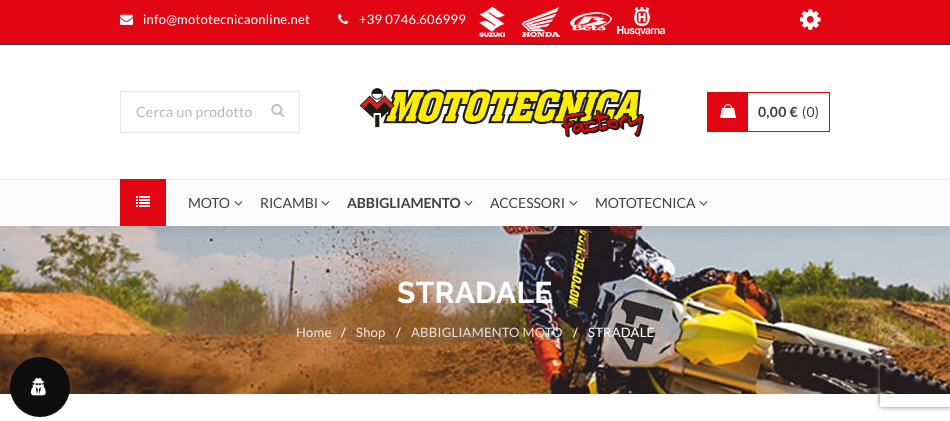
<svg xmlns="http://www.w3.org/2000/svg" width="950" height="421">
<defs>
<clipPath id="clip1"><path d="M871 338h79v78h-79zm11 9h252c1 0 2 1 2 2v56c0 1-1 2-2 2h-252c-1 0-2-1-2-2v-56c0-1 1-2 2-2z" clip-rule="evenodd"/></clipPath>
</defs>
<rect width="100%" height="100%" fill="#e20613"/>
<rect y="44" width="950" height="1" fill="#383838"/>
<image x="120" y="14" width="13" height="11" href="media/1.png"/>
<text x="143" y="24" style="font-family:Lato;font-size:13px;letter-spacing:0.25px;fill:#fff">info@mototecnicaonline.net</text>
<image x="338" y="13" width="11" height="11" href="media/2.png"/>
<text x="359" y="24" style="font-family:Lato;font-size:13px;letter-spacing:0.25px;fill:#fff">+39 0746.606999</text>
<image x="479" y="7" width="26" height="30" href="media/3.png"/>
<image x="522" y="7" width="38" height="30" href="media/4.png"/>
<image x="570" y="12" width="42" height="19" href="media/5.png"/>
<rect x="602" y="12" width="1" height="20" fill="#ffffff33"/>
<image x="617" y="7" width="49" height="29" href="media/6.png"/>
<image x="800" y="9" width="21" height="21" href="media/7.png"/>
<rect y="45" width="950" height="134" fill="#fff"/>
<rect x="120.5" y="91.5" width="179" height="41" fill="none" stroke="#e5e5e5"/>
<text x="136" y="117" style="font-family:Lato;font-size:14px;letter-spacing:0.25px;fill:#b8b8b8">Cerca un prodotto</text>
<image x="271" y="104" width="14" height="13" href="media/8.png"/>
<image x="359" y="88" width="285" height="50" href="media/9.png"/>
<rect x="707.5" y="92.5" width="122" height="39" fill="none" stroke="#e20613"/>
<rect x="708" y="93" width="40" height="38" fill="#e20613"/>
<path d="M736 118h-16l2-10h12z" fill="#fff"/>
<circle cx="728" cy="108" r="3.5" fill="none" stroke="#fff"/>
<text x="758" y="117" style="font-family:Lato;font-size:14px;font-weight:bold;letter-spacing:0.25px;fill:#3f3f3f">0,00 €</text>
<text x="802" y="117" style="font-family:Lato;font-size:14px;letter-spacing:0.25px;fill:#3f3f3f">(0)</text>
<rect y="180" width="950" height="46" fill="#fbfbfb"/>
<rect y="179" width="950" height="1" fill="#e8e8e8"/>
<rect x="120" y="179" width="46" height="47" fill="#e20613"/>
<image x="136" y="196" width="14" height="11" href="media/10.png"/>
<text x="188" y="208" style="font-family:Lato;font-size:14px;letter-spacing:-0.1px;fill:#3f3f3f">MOTO</text>
<image x="234" y="201" width="9" height="5" href="media/11.png"/>
<text x="260" y="208" style="font-family:Lato;font-size:14px;letter-spacing:-0.1px;fill:#3f3f3f">RICAMBI</text>
<image x="321" y="201" width="9" height="5" href="media/11.png"/>
<text x="347" y="208" style="font-family:Lato;font-size:14px;font-weight:bold;letter-spacing:-0.1px;fill:#3f3f3f">ABBIGLIAMENTO</text>
<image x="464" y="201" width="9" height="5" href="media/11.png"/>
<text x="490" y="208" style="font-family:Lato;font-size:14px;letter-spacing:-0.1px;fill:#3f3f3f">ACCESSORI</text>
<image x="569" y="201" width="9" height="5" href="media/11.png"/>
<text x="595" y="208" style="font-family:Lato;font-size:14px;letter-spacing:-0.1px;fill:#3f3f3f">MOTOTECNICA</text>
<image x="699" y="201" width="9" height="5" href="media/11.png"/>
<image x="0" y="226" width="950" height="168" href="media/13.png"/>
<image x="0" y="226" width="950" height="11" href="media/12.png"/>
<rect y="394" width="950" height="27" fill="#fff"/>
<text x="397" y="303" style="font-family:Raleway;font-size:30px;font-weight:bold;letter-spacing:0.25px;fill:#fff">STRADALE</text>
<text x="296" y="337" style="font-family:Lato;font-size:13px;letter-spacing:0.25px;fill:#ece2d9">Home</text>
<text x="341" y="337" style="font-family:Lato;font-size:13px;letter-spacing:0.25px;fill:#fff">/</text>
<text x="356" y="337" style="font-family:Lato;font-size:13px;letter-spacing:0.25px;fill:#ece2d9">Shop</text>
<text x="396" y="337" style="font-family:Lato;font-size:13px;letter-spacing:0.25px;fill:#fff">/</text>
<text x="411" y="337" style="font-family:Lato;font-size:13px;letter-spacing:0.25px;fill:#e5ddd6">ABBIGLIAMENTO MOTO</text>
<text x="573" y="337" style="font-family:Lato;font-size:13px;letter-spacing:0.25px;fill:#fff">/</text>
<text x="588" y="337" style="font-family:Lato;font-size:13px;letter-spacing:0.25px;fill:#fff">STRADALE</text>
<circle cx="40" cy="387" r="30" fill="#0d0d0d"/>
<image x="31" y="378" width="15" height="18" href="media/14.png"/>
<g clip-path="url(#clip1)">
<rect x="880" y="347" width="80" height="60" rx="2" fill="#808080" filter="blur(2.5px)"/>
</g>
</svg>
